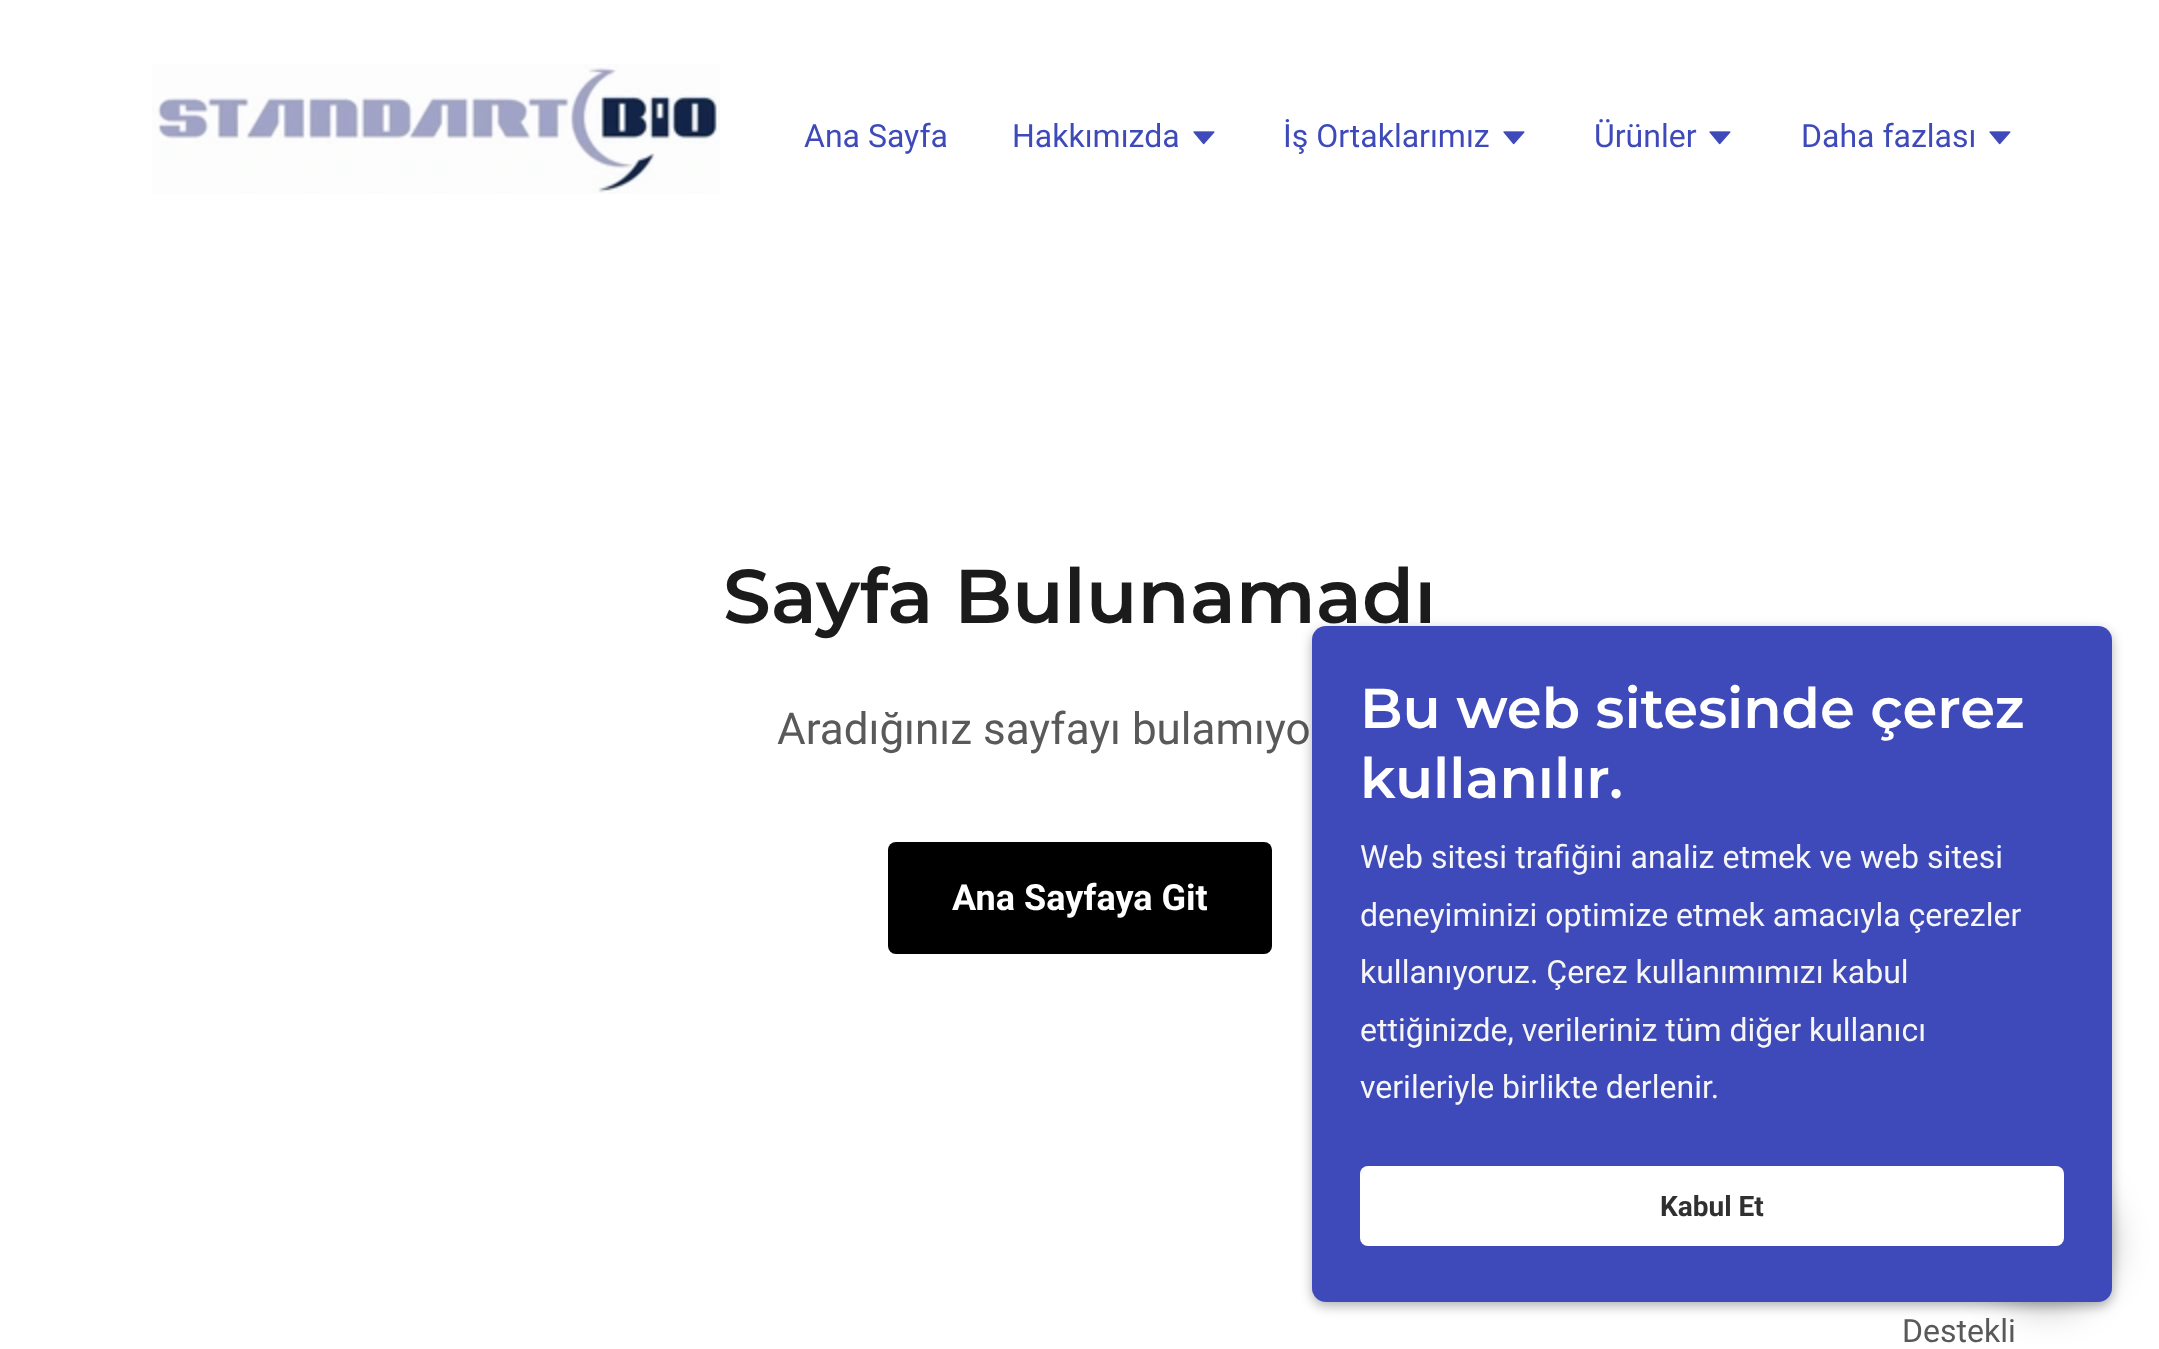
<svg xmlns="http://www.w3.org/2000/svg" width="2159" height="1349">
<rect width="100%" height="100%" fill="#fff"/>
<image x="152" y="64" width="568" height="130" href="media/1.png"/>
<text x="804" y="147" style="font-family:Roboto;font-size:32px;fill:#3e4aba">Ana Sayfa</text>
<text x="1012" y="147" style="font-family:Roboto;font-size:32px;fill:#3e4aba">Hakkımızda</text>
<image x="1193" y="131" width="22" height="14" href="media/2.png"/>
<text x="1283" y="147" style="font-family:Roboto;font-size:32px;fill:#3e4aba">İş Ortaklarımız</text>
<image x="1503" y="131" width="22" height="14" href="media/2.png"/>
<text x="1594" y="147" style="font-family:Roboto;font-size:32px;fill:#3e4aba">Ürünler</text>
<image x="1709" y="131" width="22" height="14" href="media/2.png"/>
<text x="1801" y="147" style="font-family:Roboto;font-size:32px;fill:#3e4aba">Daha fazlası</text>
<image x="1989" y="131" width="22" height="14" href="media/2.png"/>
<text x="723" y="623" style="font-family:Montserrat;font-size:76px;font-weight:600;fill:#1b1b1b">Sayfa Bulunamadı</text>
<text x="777" y="744" style="font-family:Roboto;font-size:44px;fill:#595959">Aradığınız sayfayı bulamıyo</text>
<rect x="888" y="842" width="384" height="112" rx="8" fill="#000"/>
<text x="952" y="910" style="font-family:Roboto;font-size:36px;font-weight:bold;fill:#fff">Ana Sayfaya Git</text>
<rect x="1312" y="630" width="800" height="676" rx="14" fill="#0000004d" filter="blur(6px)"/>
<rect x="1982" y="1178" width="130" height="130" rx="65" fill="#00000040" filter="blur(18px)"/>
<rect x="1312" y="626" width="800" height="676" rx="14" fill="#3e4aba"/>
<text x="1360" y="728" style="font-family:Montserrat;font-size:56px;font-weight:600;fill:#fff">Bu web sitesinde çerez</text>
<text x="1360" y="798" style="font-family:Montserrat;font-size:56px;font-weight:600;fill:#fff">kullanılır.</text>
<text x="1360" y="868" word-spacing="0.25" style="font-family:Roboto;font-size:32px;fill:#f6f6f6">Web sitesi trafiğini analiz etmek ve web sitesi</text>
<text x="1360" y="926" style="font-family:Roboto;font-size:32px;fill:#f6f6f6">deneyiminizi optimize etmek amacıyla çerezler</text>
<text x="1360" y="983" style="font-family:Roboto;font-size:32px;fill:#f6f6f6">kullanıyoruz. Çerez kullanımımızı kabul</text>
<text x="1360" y="1041" style="font-family:Roboto;font-size:32px;fill:#f6f6f6">ettiğinizde, verileriniz tüm diğer kullanıcı</text>
<text x="1360" y="1098" style="font-family:Roboto;font-size:32px;fill:#f6f6f6">verileriyle birlikte derlenir.</text>
<rect x="1360" y="1166" width="704" height="80" rx="8" fill="#fff"/>
<text x="1660" y="1216" style="font-family:Roboto;font-size:28px;font-weight:bold;fill:#303030">Kabul Et</text>
<text x="1902" y="1342" style="font-family:Roboto;font-size:32px;fill:#595959">Destekli</text>
</svg>
